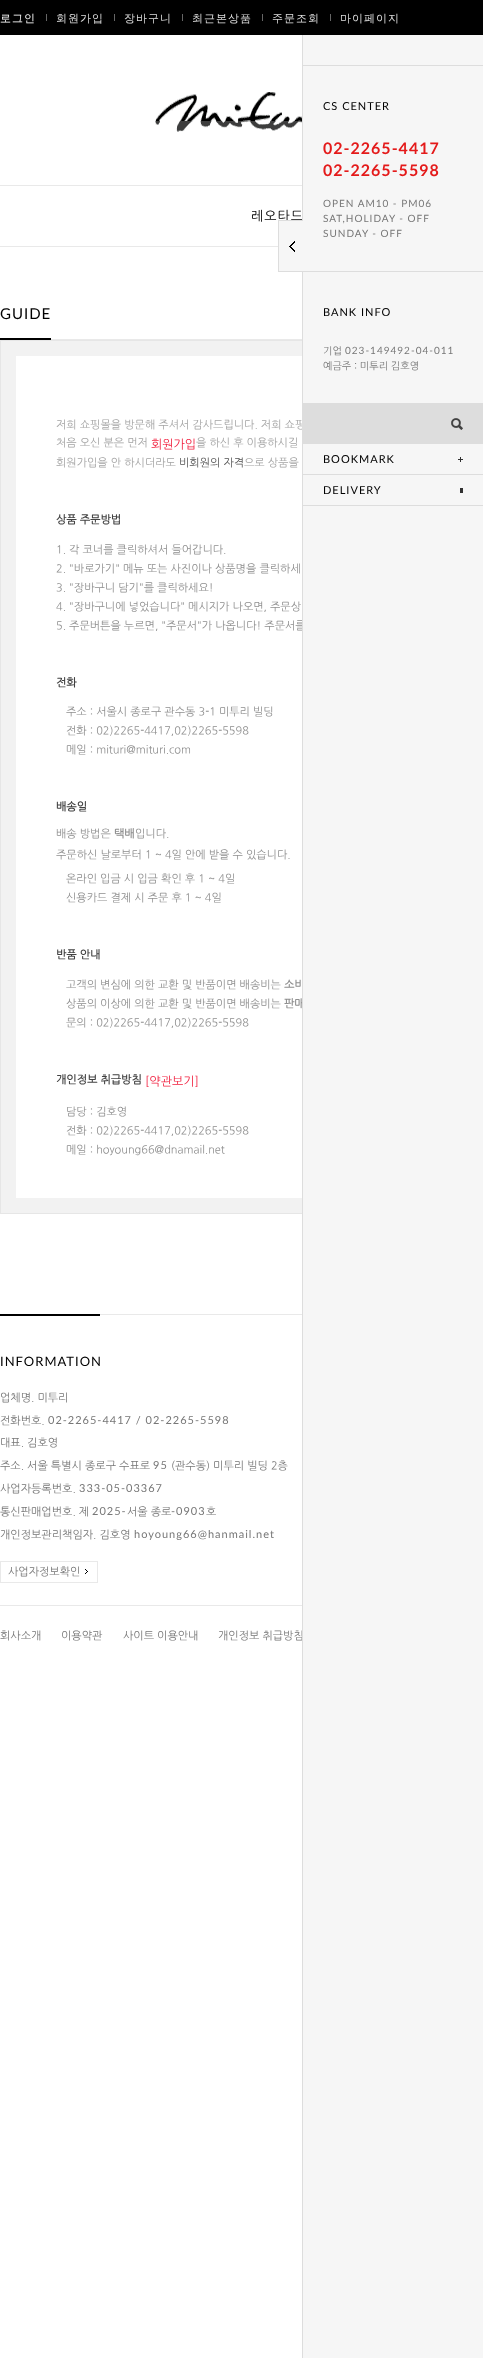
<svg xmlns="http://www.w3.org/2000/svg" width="483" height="2358">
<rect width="100%" height="100%" fill="#fff"/>
<rect width="483" height="35" fill="#000"/>
<text x="0" y="22" style="font-family:WenQuanYi Zen Hei;font-size:11px;font-weight:500;letter-spacing:1px;fill:#fff">로그인</text>
<rect x="46" y="14" width="1" height="7" fill="#666"/>
<text x="56" y="22" style="font-family:WenQuanYi Zen Hei;font-size:11px;font-weight:500;letter-spacing:1px;fill:#ddd">회원가입</text>
<rect x="114" y="14" width="1" height="7" fill="#666"/>
<text x="124" y="22" style="font-family:WenQuanYi Zen Hei;font-size:11px;font-weight:500;letter-spacing:1px;fill:#ddd">장바구니</text>
<rect x="182" y="14" width="1" height="7" fill="#666"/>
<text x="192" y="22" style="font-family:WenQuanYi Zen Hei;font-size:11px;font-weight:500;letter-spacing:1px;fill:#ddd">최근본상품</text>
<rect x="262" y="14" width="1" height="7" fill="#666"/>
<text x="272" y="22" style="font-family:WenQuanYi Zen Hei;font-size:11px;font-weight:500;letter-spacing:1px;fill:#ddd">주문조회</text>
<rect x="330" y="14" width="1" height="7" fill="#666"/>
<text x="340" y="22" style="font-family:WenQuanYi Zen Hei;font-size:11px;font-weight:500;letter-spacing:1px;fill:#ddd">마이페이지</text>
<image x="155" y="92" width="147" height="40" href="media/1.png"/>
<rect y="185" width="302" height="1" fill="#e9e9e9"/>
<rect y="246" width="278" height="1" fill="#e9e9e9"/>
<text x="251" y="220" style="font-family:NanumGothic;font-size:13px;letter-spacing:1px;fill:#000">레오타드</text>
<rect x="51" y="339" width="251" height="1" fill="#e9e9e9"/>
<rect y="338" width="51" height="2" fill="#000"/>
<text x="0" y="319" style="font-family:Lato;font-size:15px;letter-spacing:1px;fill:#000">GUIDE</text>
<rect x="1" y="341" width="301" height="872" fill="#f2f2f2"/>
<rect x="0.5" y="340.5" width="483" height="873" fill="none" stroke="#e6e6e6"/>
<rect x="16" y="356" width="286" height="842" fill="#fff"/>
<text x="56" y="428" style="font-family:NanumGothic;font-size:11px;fill:#a4a4a4">저희 쇼핑몰을 방문해 주셔서 감사드립니다. 저희 쇼핑</text>
<text x="56" y="446" style="font-family:NanumGothic;font-size:11px;fill:#a4a4a4">처음 오신 분은 먼저</text>
<text x="151" y="448" style="font-family:NanumGothic;font-size:12px;fill:#f12240">회원가입</text>
<text x="196" y="446" style="font-family:NanumGothic;font-size:11px;fill:#a4a4a4">을 하신 후 이용하시길</text>
<text x="56" y="466" style="font-family:NanumGothic;font-size:11px;fill:#a4a4a4">회원가입을 안 하시더라도</text>
<text x="179" y="466" style="font-family:NanumGothic;font-size:11px;fill:#545454">비회원의 자격</text>
<text x="244" y="466" style="font-family:NanumGothic;font-size:11px;fill:#a4a4a4">으로 상품을</text>
<text x="56" y="523" style="font-family:NanumGothic;font-size:11px;font-weight:bold;fill:#424242">상품 주문방법</text>
<text x="56" y="553" style="font-family:NanumGothic;font-size:11px;fill:#8f8f8f">1. 각 코너를 클릭하셔서 들어갑니다.</text>
<text x="56" y="572" style="font-family:NanumGothic;font-size:11px;fill:#8f8f8f">2. "바로가기" 메뉴 또는 사진이나 상품명을 클릭하세</text>
<text x="56" y="591" style="font-family:NanumGothic;font-size:11px;fill:#8f8f8f">3. "장바구니 담기"를 클릭하세요!</text>
<text x="56" y="610" style="font-family:NanumGothic;font-size:11px;fill:#8f8f8f">4. "장바구니에 넣었습니다" 메시지가 나오면, 주문상</text>
<text x="56" y="629" style="font-family:NanumGothic;font-size:11px;fill:#8f8f8f">5. 주문버튼을 누르면, "주문서"가 나옵니다! 주문서를</text>
<text x="56" y="686" style="font-family:NanumGothic;font-size:11px;font-weight:bold;fill:#424242">전화</text>
<text x="66" y="715" style="font-family:NanumGothic;font-size:11px;fill:#8f8f8f">주소 : 서울시 종로구 관수동 3-1 미투리 빌딩</text>
<text x="66" y="734" style="font-family:NanumGothic;font-size:11px;fill:#8f8f8f">전화 : 02)2265-4417,02)2265-5598</text>
<text x="66" y="753" style="font-family:NanumGothic;font-size:11px;fill:#8f8f8f">메일 : mituri@mituri.com</text>
<text x="56" y="810" style="font-family:NanumGothic;font-size:11px;font-weight:bold;fill:#424242">배송일</text>
<text x="56" y="837" style="font-family:NanumGothic;font-size:11px;fill:#8f8f8f">배송 방법은</text>
<text x="114" y="837" style="font-family:NanumGothic;font-size:11px;font-weight:bold;fill:#8f8f8f">택배</text>
<text x="135" y="837" style="font-family:NanumGothic;font-size:11px;fill:#8f8f8f">입니다.</text>
<text x="56" y="858" style="font-family:NanumGothic;font-size:11px;fill:#8f8f8f">주문하신 날로부터 1 ~ 4일 안에 받을 수 있습니다.</text>
<text x="66" y="882" style="font-family:NanumGothic;font-size:11px;fill:#8f8f8f">온라인 입금 시 입금 확인 후 1 ~ 4일</text>
<text x="66" y="901" style="font-family:NanumGothic;font-size:11px;fill:#8f8f8f">신용카드 결제 시 주문 후 1 ~ 4일</text>
<text x="56" y="958" style="font-family:NanumGothic;font-size:11px;font-weight:bold;fill:#424242">반품 안내</text>
<text x="66" y="988" style="font-family:NanumGothic;font-size:11px;fill:#8f8f8f">고객의 변심에 의한 교환 및 반품이면 배송비는</text>
<text x="284" y="988" style="font-family:NanumGothic;font-size:11px;font-weight:bold;fill:#8f8f8f">소비</text>
<text x="66" y="1007" style="font-family:NanumGothic;font-size:11px;fill:#8f8f8f">상품의 이상에 의한 교환 및 반품이면 배송비는</text>
<text x="284" y="1007" style="font-family:NanumGothic;font-size:11px;font-weight:bold;fill:#8f8f8f">판매</text>
<text x="66" y="1026" style="font-family:NanumGothic;font-size:11px;fill:#8f8f8f">문의 : 02)2265-4417,02)2265-5598</text>
<text x="56" y="1083" style="font-family:NanumGothic;font-size:11px;font-weight:bold;fill:#424242">개인정보 취급방침</text>
<text x="145" y="1085" style="font-family:NanumGothic;font-size:12px;fill:#f12240">[약관보기]</text>
<text x="66" y="1115" style="font-family:NanumGothic;font-size:11px;fill:#8f8f8f">담당 : 김호영</text>
<text x="66" y="1134" style="font-family:NanumGothic;font-size:11px;fill:#8f8f8f">전화 : 02)2265-4417,02)2265-5598</text>
<text x="66" y="1153" style="font-family:NanumGothic;font-size:11px;fill:#8f8f8f">메일 : hoyoung66@dnamail.net</text>
<rect x="303" y="35" width="180" height="2323" fill="#f6f6f6"/>
<text x="218" y="1639" style="font-family:NanumGothic;font-size:11px;fill:#777">개인정보 취급방침</text>
<rect x="302" y="35" width="1" height="2323" fill="#ddd"/>
<rect x="303" y="65" width="180" height="1" fill="#ddd"/>
<text x="323" y="110" style="font-family:Lato;font-size:11px;letter-spacing:1px;fill:#000">CS CENTER</text>
<text x="323" y="154" style="font-family:Lato;font-size:16px;font-weight:bold;letter-spacing:1px;fill:#e41a1a">02-2265-4417</text>
<text x="323" y="176" style="font-family:Lato;font-size:16px;font-weight:bold;letter-spacing:1px;fill:#e41a1a">02-2265-5598</text>
<text x="323" y="207" style="font-family:Lato;font-size:10px;letter-spacing:1px;fill:#777">OPEN AM10 - PM06</text>
<text x="323" y="222" style="font-family:Lato;font-size:10px;letter-spacing:1px;fill:#777">SAT,HOLIDAY - OFF</text>
<text x="323" y="237" style="font-family:Lato;font-size:10px;letter-spacing:1px;fill:#777">SUNDAY - OFF</text>
<image x="278" y="220" width="25" height="52" href="media/2.png"/>
<rect x="303" y="271" width="180" height="1" fill="#ddd"/>
<text x="323" y="316" style="font-family:Lato;font-size:11px;letter-spacing:1px;fill:#000">BANK INFO</text>
<text x="323" y="354" style="font-family:NanumGothic;font-size:10px;fill:#777">기업</text>
<text x="345" y="354" style="font-family:Lato;font-size:10px;letter-spacing:1px;fill:#777">023-149492-04-011</text>
<text x="323" y="369" style="font-family:NanumGothic;font-size:10px;fill:#777">예금주 : 미투리 김호영</text>
<rect x="303" y="403" width="180" height="41" fill="#ddd"/>
<image x="451" y="418" width="12" height="12" href="media/3.png"/>
<rect x="303" y="474" width="180" height="1" fill="#ddd"/>
<image x="458" y="457" width="5" height="5" href="media/4.png"/>
<text x="323" y="463" style="font-family:Lato;font-size:11px;letter-spacing:1px;fill:#000">BOOKMARK</text>
<rect x="303" y="505" width="180" height="1" fill="#ddd"/>
<rect x="460" y="488" width="3" height="5" fill="#313131"/>
<text x="323" y="494" style="font-family:Lato;font-size:11px;letter-spacing:1px;fill:#000">DELIVERY</text>
<rect x="100" y="1314" width="202" height="1" fill="#e9e9e9"/>
<rect y="1605" width="302" height="1" fill="#e9e9e9"/>
<rect y="1314" width="100" height="2" fill="#000"/>
<text x="0" y="1366" style="font-family:Lato;font-size:13px;letter-spacing:1px;fill:#000">INFORMATION</text>
<text x="0" y="1401" style="font-family:NanumGothic;font-size:11px;fill:#777">업체명. 미투리</text>
<text x="0" y="1424" style="font-family:NanumGothic;font-size:11px;fill:#777">전화번호.</text>
<text x="48" y="1424" style="font-family:Lato;font-size:11px;letter-spacing:1px;fill:#777">02-2265-4417 / 02-2265-5598</text>
<text x="0" y="1446" style="font-family:NanumGothic;font-size:11px;fill:#777">대표. 김호영</text>
<text x="0" y="1469" style="font-family:NanumGothic;font-size:11px;fill:#777">주소. 서울 특별시 종로구 수표로</text>
<text x="153" y="1469" style="font-family:Lato;font-size:11px;letter-spacing:1px;fill:#777">95</text>
<text x="171" y="1469" style="font-family:NanumGothic;font-size:11px;fill:#777">(관수동) 미투리 빌딩 2층</text>
<text x="0" y="1492" style="font-family:NanumGothic;font-size:11px;fill:#777">사업자등록번호.</text>
<text x="79" y="1492" style="font-family:Lato;font-size:11px;letter-spacing:1px;fill:#777">333-05-03367</text>
<text x="0" y="1515" style="font-family:NanumGothic;font-size:11px;fill:#777">통신판매업번호. 제</text>
<text x="92" y="1515" style="font-family:Lato;font-size:11px;letter-spacing:1px;fill:#777">2025-</text>
<text x="127" y="1515" style="font-family:NanumGothic;font-size:11px;fill:#777">서울 종로</text>
<text x="171" y="1515" style="font-family:Lato;font-size:11px;letter-spacing:1px;fill:#777">-0903</text>
<text x="206" y="1515" style="font-family:NanumGothic;font-size:11px;fill:#777">호</text>
<text x="0" y="1538" style="font-family:NanumGothic;font-size:11px;fill:#777">개인정보관리책임자. 김호영</text>
<text x="134" y="1538" style="font-family:Lato;font-size:11px;letter-spacing:1px;fill:#777">hoyoung66@hanmail.net</text>
<image x="85" y="1569" width="3" height="5" href="media/5.png"/>
<rect x="0.5" y="1561.5" width="97" height="21" fill="none" stroke="#e9e9e9"/>
<text x="8" y="1575" style="font-family:NanumGothic;font-size:11px;fill:#777">사업자정보확인</text>
<text x="0" y="1639" style="font-family:NanumGothic;font-size:11px;fill:#777">회사소개</text>
<text x="61" y="1639" style="font-family:NanumGothic;font-size:11px;fill:#777">이용약관</text>
<text x="123" y="1639" style="font-family:NanumGothic;font-size:11px;fill:#777">사이트 이용안내</text>
</svg>
